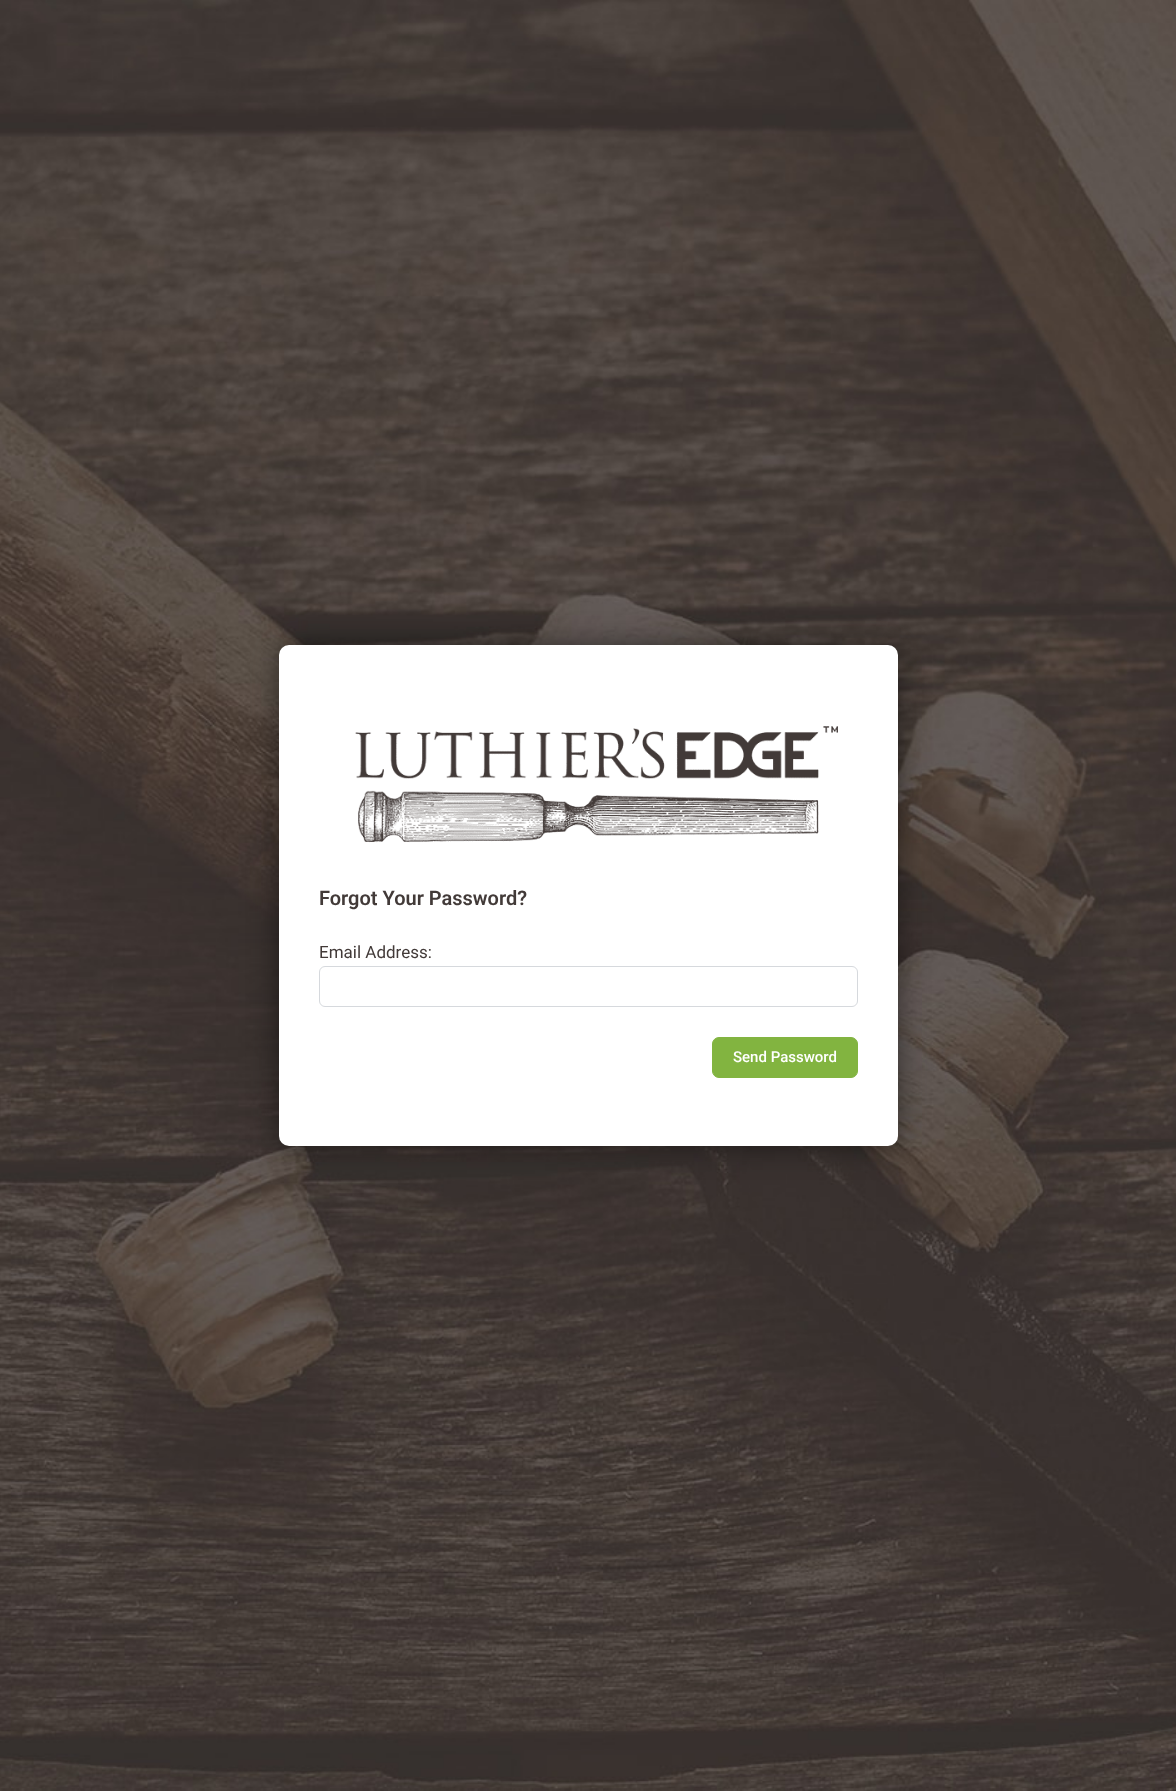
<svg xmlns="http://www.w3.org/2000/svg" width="1176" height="1791">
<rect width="100%" height="100%" fill="#fff"/>
<image x="0" y="0" width="1176" height="1791" href="media/1.png"/>
<rect x="279" y="645" width="619" height="501" rx="10" fill="#00000080" filter="blur(15px)"/>
<rect x="279" y="645" width="619" height="501" rx="10" fill="#fff"/>
<image x="355" y="726" width="483" height="117" href="media/2.png"/>
<text x="319" y="905" style="font-family:Roboto;font-size:20px;font-weight:600;fill:#423a38">Forgot Your Password?</text>
<text x="319" y="958" style="font-family:Roboto;font-size:17px;fill:#423a38">Email Address:</text>
<rect x="319.5" y="966.5" width="538" height="40" rx="5.5" fill="none" stroke="#d6d9dd"/>
<rect x="712.5" y="1037.5" width="145" height="40" rx="6.5" fill="#82b440" stroke="#82b440"/>
<text x="733" y="1062" style="font-family:Roboto;font-size:15px;font-weight:500;fill:#fff">Send Password</text>
</svg>
